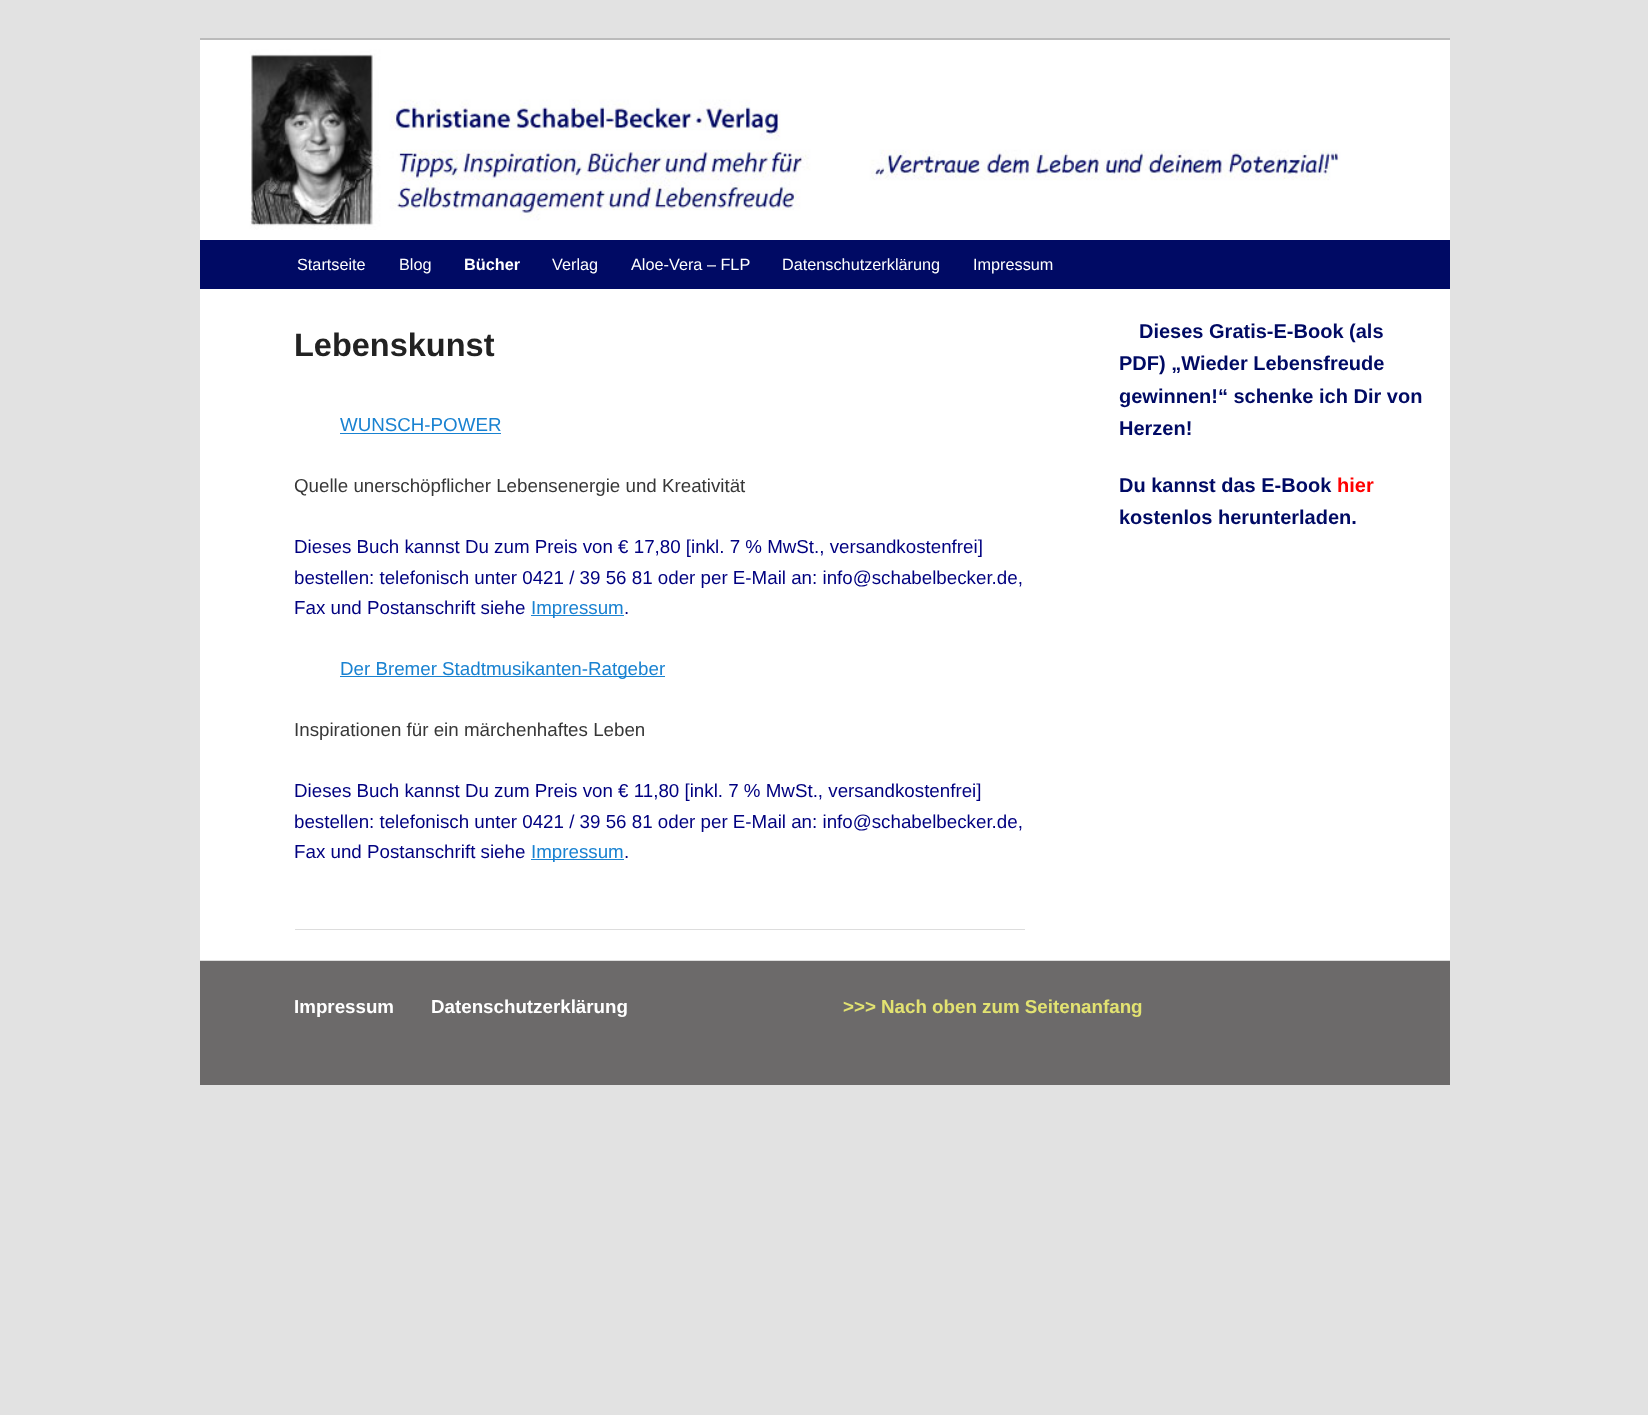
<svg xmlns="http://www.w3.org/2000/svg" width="1648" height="1415">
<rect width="100%" height="100%" fill="#e2e2e2"/>
<rect x="200" y="230" width="1250" height="730" fill="#fff"/>
<rect x="200" y="38" width="1250" height="2" fill="#bbb"/>
<image x="200" y="40" width="1250" height="190" href="media/1.png"/>
<rect x="200" y="240" width="1250" height="49" fill="#000a64"/>
<text x="297" y="270" style="font-family:Liberation Sans;font-size:16.25px;fill:#fff">Startseite</text>
<text x="399" y="270" style="font-family:Liberation Sans;font-size:16.25px;fill:#fff">Blog</text>
<text x="464" y="270" style="font-family:Liberation Sans;font-size:16.25px;font-weight:bold;fill:#fff">Bücher</text>
<text x="552" y="270" style="font-family:Liberation Sans;font-size:16.25px;fill:#fff">Verlag</text>
<text x="631" y="270" style="font-family:Liberation Sans;font-size:16.25px;fill:#fff">Aloe-Vera – FLP</text>
<text x="782" y="270" style="font-family:Liberation Sans;font-size:16.25px;fill:#fff">Datenschutzerklärung</text>
<text x="973" y="270" style="font-family:Liberation Sans;font-size:16.25px;fill:#fff">Impressum</text>
<rect x="295" y="929" width="730" height="1" fill="#ddd"/>
<text x="294" y="356" style="font-family:Liberation Sans;font-size:32.5px;font-weight:bold;fill:#222">Lebenskunst</text>
<text x="340" y="431" style="font-family:Liberation Sans;font-size:18.75px;fill:#1982d1">WUNSCH-POWER</text>
<rect x="340" y="433" width="161" height="1" fill="#1982d1"/>
<text x="294" y="492" style="font-family:Liberation Sans;font-size:18.75px;fill:#373737">Quelle unerschöpflicher Lebensenergie und Kreativität</text>
<text x="294" y="553" style="font-family:Liberation Sans;font-size:18.75px;fill:#000080">Dieses Buch kannst Du zum Preis von € 17,80 [inkl. 7 % MwSt., versandkostenfrei]</text>
<text x="294" y="584" style="font-family:Liberation Sans;font-size:18.75px;fill:#000080">bestellen: telefonisch unter 0421 / 39 56 81 oder per E-Mail an: info@schabelbecker.de,</text>
<text x="294" y="614" style="font-family:Liberation Sans;font-size:18.75px;fill:#000080">Fax und Postanschrift siehe</text>
<rect x="531" y="615" width="93" height="1" fill="#1982d1"/>
<text x="531" y="614" style="font-family:Liberation Sans;font-size:18.75px;fill:#1982d1">Impressum</text>
<text x="624" y="614" style="font-family:Liberation Sans;font-size:18.75px;fill:#000080">.</text>
<rect x="340" y="676" width="325" height="1" fill="#1982d1"/>
<text x="340" y="675" style="font-family:Liberation Sans;font-size:18.75px;fill:#1982d1">Der Bremer Stadtmusikanten-Ratgeber</text>
<text x="294" y="736" style="font-family:Liberation Sans;font-size:18.75px;fill:#373737">Inspirationen für ein märchenhaftes Leben</text>
<text x="294" y="797" style="font-family:Liberation Sans;font-size:18.75px;fill:#000080">Dieses Buch kannst Du zum Preis von € 11,80 [inkl. 7 % MwSt., versandkostenfrei]</text>
<text x="294" y="828" style="font-family:Liberation Sans;font-size:18.75px;fill:#000080">bestellen: telefonisch unter 0421 / 39 56 81 oder per E-Mail an: info@schabelbecker.de,</text>
<text x="294" y="858" style="font-family:Liberation Sans;font-size:18.75px;fill:#000080">Fax und Postanschrift siehe</text>
<rect x="531" y="859" width="93" height="1" fill="#1982d1"/>
<text x="531" y="858" style="font-family:Liberation Sans;font-size:18.75px;fill:#1982d1">Impressum</text>
<text x="624" y="858" style="font-family:Liberation Sans;font-size:18.75px;fill:#000080">.</text>
<text x="1139" y="338" style="font-family:Liberation Sans;font-size:20px;font-weight:bold;fill:#000a64">Dieses Gratis-E-Book (als</text>
<text x="1119" y="370" style="font-family:Liberation Sans;font-size:20px;font-weight:bold;fill:#000a64">PDF) „Wieder Lebensfreude</text>
<text x="1119" y="403" style="font-family:Liberation Sans;font-size:20px;font-weight:bold;fill:#000a64">gewinnen!“ schenke ich Dir von</text>
<text x="1119" y="435" style="font-family:Liberation Sans;font-size:20px;font-weight:bold;fill:#000a64">Herzen!</text>
<text x="1119" y="492" style="font-family:Liberation Sans;font-size:20px;font-weight:bold;fill:#000a64">Du kannst das E-Book</text>
<text x="1337" y="492" style="font-family:Liberation Sans;font-size:20px;font-weight:bold;fill:#f00">hier</text>
<text x="1119" y="524" style="font-family:Liberation Sans;font-size:20px;font-weight:bold;fill:#000a64">kostenlos herunterladen.</text>
<rect x="200" y="961" width="1250" height="124" fill="#6c6a6a"/>
<rect x="200" y="960" width="1250" height="1" fill="#ddd"/>
<text x="294" y="1013" style="font-family:Liberation Sans;font-size:18.75px;font-weight:bold;fill:#fff">Impressum</text>
<text x="431" y="1013" style="font-family:Liberation Sans;font-size:18.75px;font-weight:bold;fill:#fff">Datenschutzerklärung</text>
<text x="843" y="1013" style="font-family:Liberation Sans;font-size:18.75px;font-weight:bold;fill:#e2e271">&gt;&gt;&gt; Nach oben zum Seitenanfang</text>
</svg>
